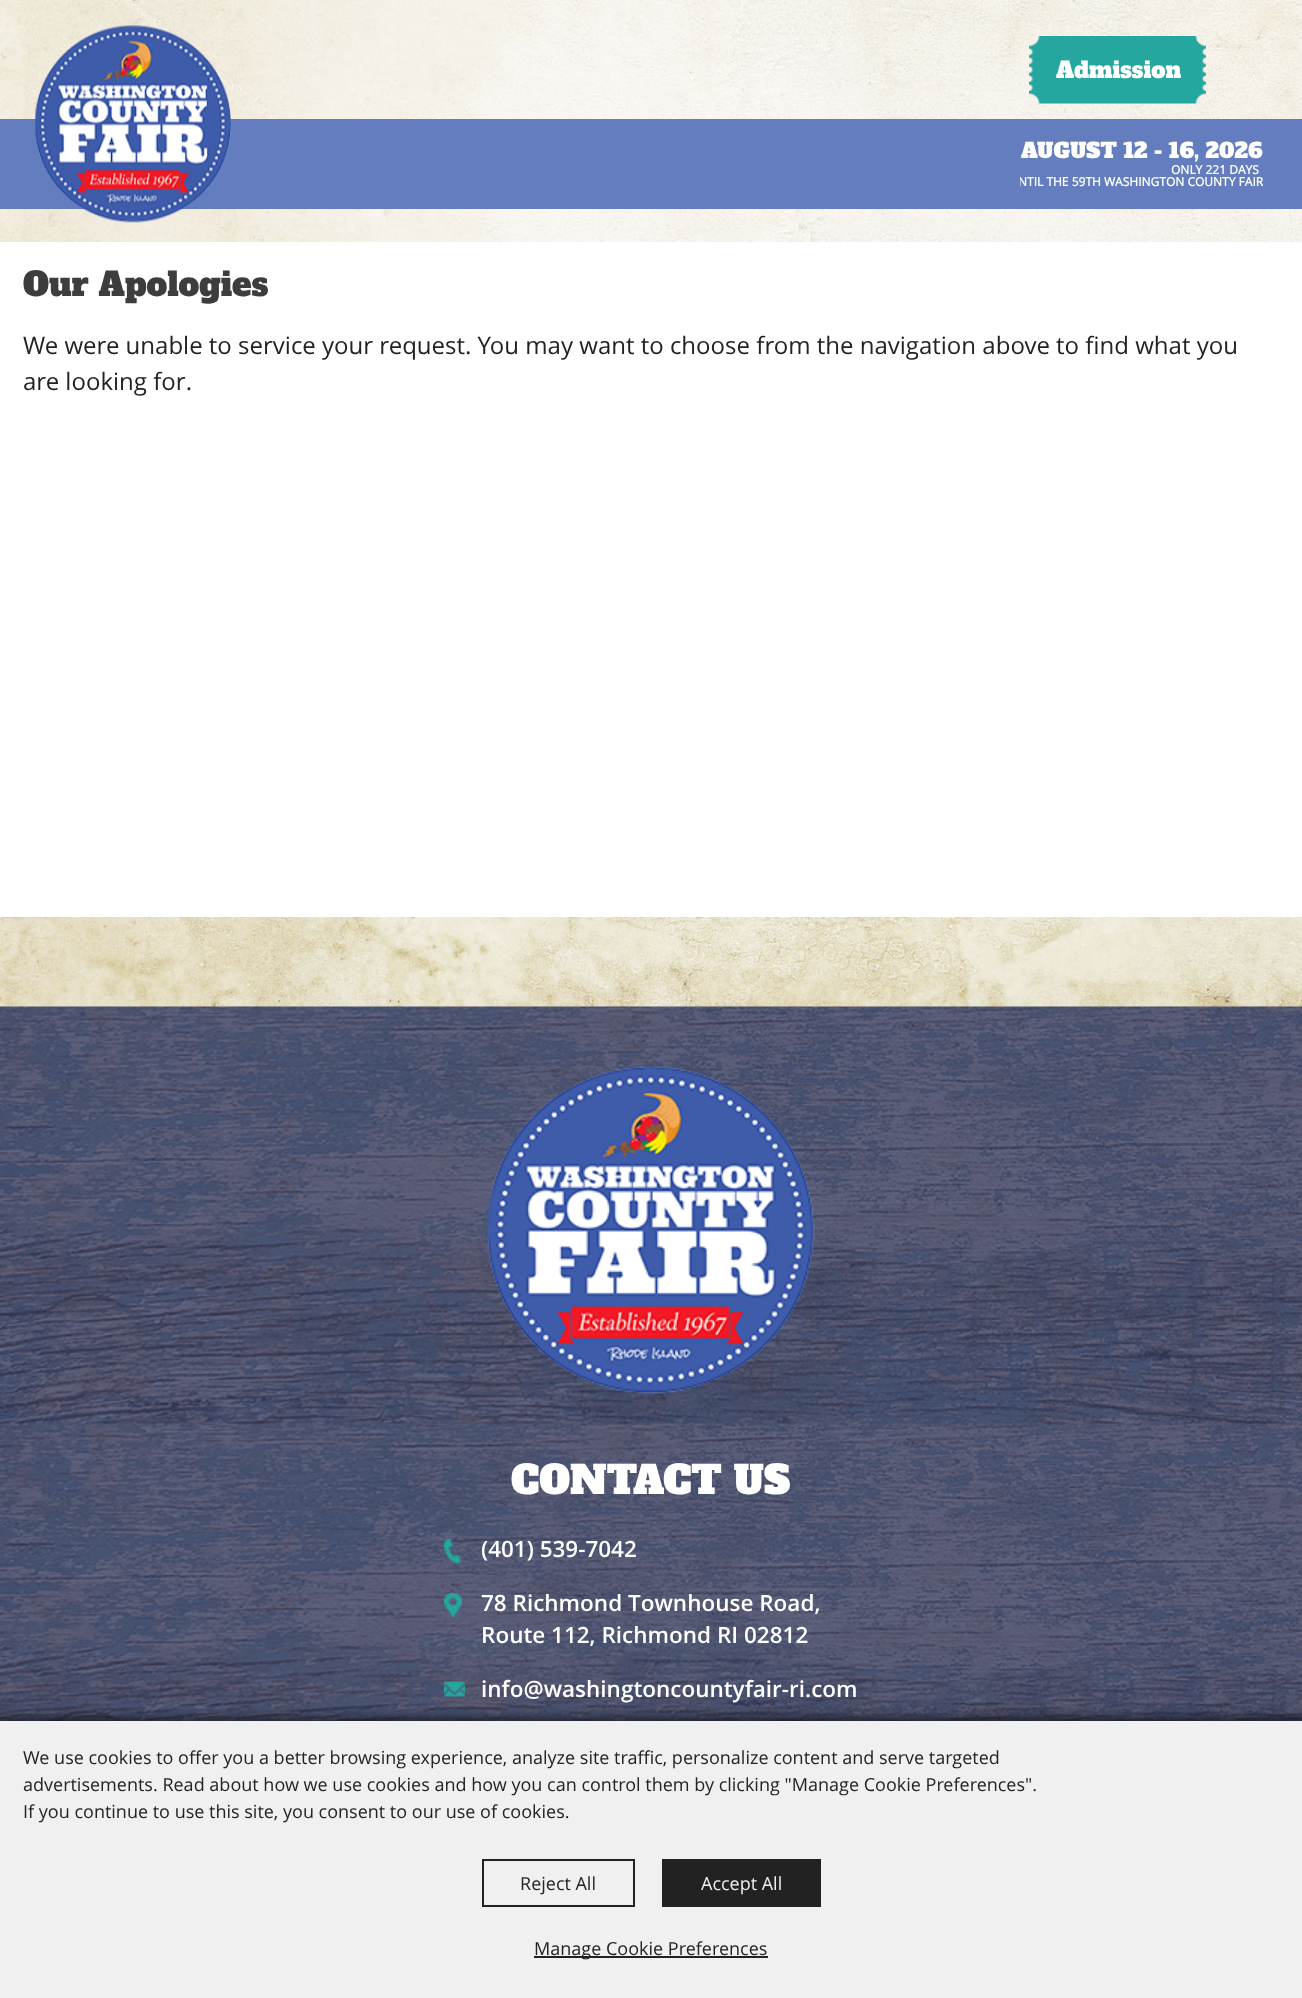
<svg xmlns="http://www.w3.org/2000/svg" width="1302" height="1998">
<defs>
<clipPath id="clip1"><rect x="1020" y="164" width="243" height="24"/></clipPath>
</defs>
<rect width="100%" height="100%" fill="#fff"/>
<image x="0" y="0" width="1302" height="1007" href="media/1.png"/>
<rect y="119" width="1302" height="90" fill="#637dbf"/>
<image x="35" y="25" width="196" height="198" href="media/2.png"/>
<image x="1029" y="36" width="177" height="68" href="media/3.png"/>
<text x="1056" y="78" style="font-family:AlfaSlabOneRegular;font-size:22.5px;fill:#fff">Admission</text>
<text x="1021" y="158" style="font-family:AlfaSlabOneRegular;font-size:21px;fill:#fff">AUGUST 12 - 16, 2026</text>
<text x="1171" y="174" style="font-family:Open Sans;font-size:12px;font-weight:bold;fill:#fff">ONLY 221 DAYS</text>
<g clip-path="url(#clip1)">
<text x="1018" y="186" style="font-family:Open Sans;font-size:12px;font-weight:bold;fill:#fff">NTIL THE 59TH WASHINGTON COUNTY FAIR</text>
</g>
<rect y="242" width="1302" height="675" fill="#fff"/>
<text x="23" y="296" style="font-family:AlfaSlabOneRegular;font-size:32.75px;fill:#3e3d3e">Our Apologies</text>
<text x="23" y="354" style="font-family:Open Sans;font-size:24px;fill:#242223">We were unable to service your request. You may want to choose from the navigation above to find what you</text>
<text x="23" y="390" style="font-family:Open Sans;font-size:24px;fill:#242223">are looking for.</text>
<image x="0" y="1006" width="1302" height="715" href="media/4.png"/>
<image x="487" y="1066" width="328" height="328" href="media/5.png"/>
<text x="511" y="1494" style="font-family:AlfaSlabOneRegular;font-size:39px;fill:#fff">CONTACT US</text>
<image x="444" y="1539" width="17" height="24" href="media/6.png"/>
<text x="481" y="1557" style="font-family:Open Sans;font-size:22.5px;font-weight:600;fill:#fff">(401) 539-7042</text>
<image x="444" y="1593" width="18" height="24" href="media/7.png"/>
<text x="481" y="1611" style="font-family:Open Sans;font-size:22.5px;font-weight:600;fill:#fff">78 Richmond Townhouse Road,</text>
<text x="481" y="1643" style="font-family:Open Sans;font-size:22.5px;font-weight:600;fill:#fff">Route 112, Richmond RI 02812</text>
<image x="444" y="1681" width="21" height="16" href="media/8.png"/>
<text x="481" y="1697" style="font-family:Open Sans;font-size:22.5px;font-weight:600;fill:#fff">info@washingtoncountyfair-ri.com</text>
<rect x="-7" y="1721" width="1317" height="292" fill="#000" filter="blur(7.5px)"/>
<rect y="1721" width="1302" height="277" fill="#f0f0f0"/>
<text x="23" y="1764" style="font-family:Open Sans;font-size:18px;fill:#242223">We use cookies to offer you a better browsing experience, analyze site traffic, personalize content and serve targeted</text>
<text x="23" y="1791" style="font-family:Open Sans;font-size:18px;fill:#242223">advertisements. Read about how we use cookies and how you can control them by clicking "Manage Cookie Preferences".</text>
<text x="23" y="1818" style="font-family:Open Sans;font-size:18px;fill:#242223">If you continue to use this site, you consent to our use of cookies.</text>
<rect x="483" y="1860" width="151" height="46" fill="none" stroke="#222" stroke-width="2"/>
<text x="520" y="1890" style="font-family:Open Sans;font-size:18px;fill:#242223">Reject All</text>
<rect x="662" y="1859" width="159" height="48" fill="#222"/>
<text x="701" y="1890" style="font-family:Open Sans;font-size:18px;fill:#f0f0f0">Accept All</text>
<rect x="534" y="1956" width="234" height="2" fill="#222"/>
<text x="534" y="1955" style="font-family:Open Sans;font-size:18px;fill:#242223">Manage Cookie Preferences</text>
</svg>
